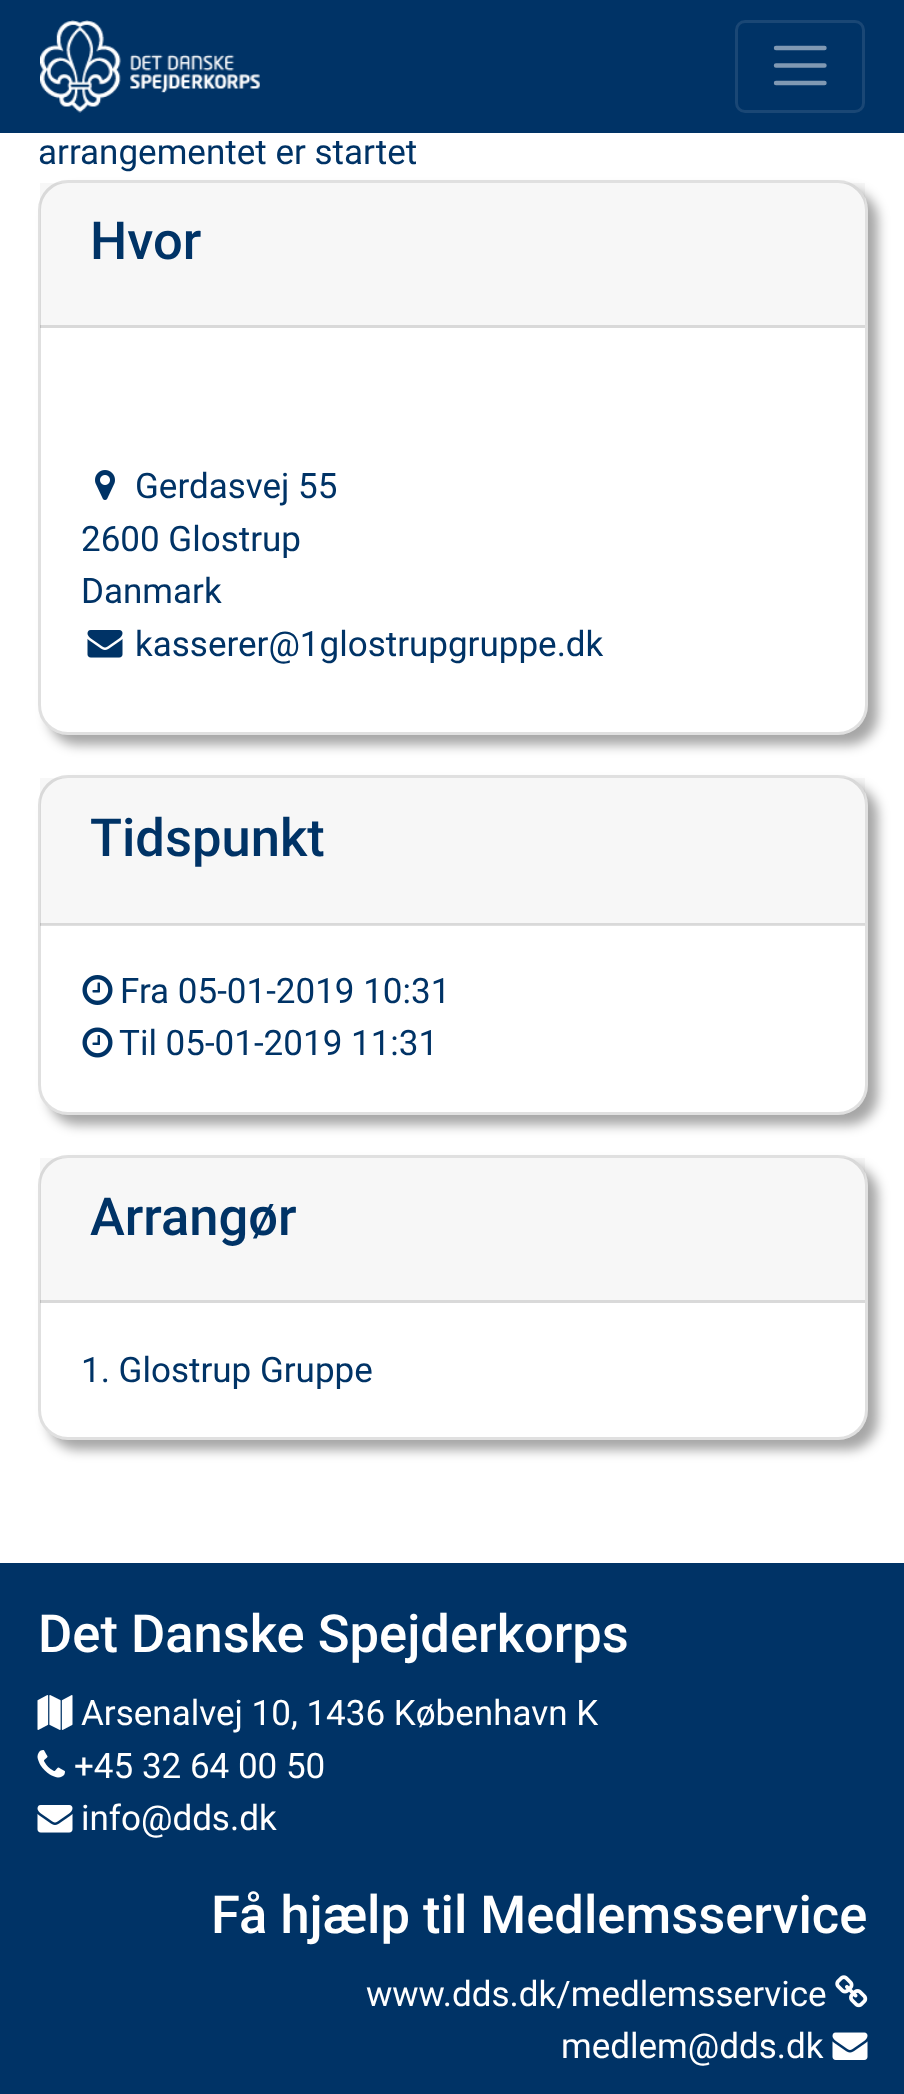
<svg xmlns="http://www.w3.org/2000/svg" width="904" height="2094">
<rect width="100%" height="100%" fill="#fff"/>
<rect width="904" height="133" fill="#036"/>
<image x="40" y="20" width="220" height="93" href="media/1.png"/>
<rect x="736.5" y="21.5" width="127" height="90" rx="8.5" fill="none" stroke="#1a4775" stroke-width="3"/>
<path d="M776 48h48.5m-48.5 17.5h48.5m-48.5 17.5h48.5" fill="none" stroke="#8099b3" stroke-width="4.4" stroke-linecap="round"/>
<text x="38" y="164" style="font-family:Roboto;font-size:35px;fill:#036">arrangementet er startet</text>
<rect x="48" y="190" width="830" height="555" rx="30" fill="#00000059" filter="blur(6px)"/>
<rect x="38" y="180" width="830" height="555" rx="30" fill="#fff"/>
<rect x="39.5" y="181.5" width="827" height="552" rx="28.5" fill="none" stroke="#0000001f" stroke-width="3"/>
<rect x="40" y="183" width="825" height="145" fill="#00000008"/>
<rect x="40" y="325" width="825" height="3" fill="#0000001f"/>
<text x="90" y="259" style="font-family:Roboto;font-size:52.5px;font-weight:500;fill:#036">Hvor</text>
<image x="95" y="470" width="20" height="30" href="media/2.png"/>
<text x="135" y="498" style="font-family:Roboto;font-size:35px;fill:#036">Gerdasvej 55</text>
<text x="81" y="551" style="font-family:Roboto;font-size:35px;fill:#036">2600 Glostrup</text>
<text x="81" y="603" style="font-family:Roboto;font-size:35px;fill:#036">Danmark</text>
<image x="87" y="630" width="36" height="28" href="media/3.png"/>
<text x="135" y="656" style="font-family:Roboto;font-size:35px;fill:#036">kasserer@1glostrupgruppe.dk</text>
<rect x="48" y="785" width="830" height="340" rx="30" fill="#00000059" filter="blur(6px)"/>
<rect x="38" y="775" width="830" height="340" rx="30" fill="#fff"/>
<rect x="39.5" y="776.5" width="827" height="337" rx="28.5" fill="none" stroke="#0000001f" stroke-width="3"/>
<rect x="40" y="778" width="825" height="147" fill="#00000008"/>
<rect x="40" y="923" width="825" height="3" fill="#0000001f"/>
<text x="90" y="856" style="font-family:Roboto;font-size:52.5px;font-weight:500;fill:#036">Tidspunkt</text>
<image x="82" y="975" width="31" height="30" href="media/4.png"/>
<text x="120" y="1003" style="font-family:Roboto;font-size:35px;fill:#036">Fra 05-01-2019 10:31</text>
<image x="82" y="1027" width="31" height="31" href="media/5.png"/>
<text x="119" y="1055" style="font-family:Roboto;font-size:35px;fill:#036">Til 05-01-2019 11:31</text>
<rect x="48" y="1165" width="830" height="285" rx="30" fill="#00000059" filter="blur(6px)"/>
<rect x="38" y="1155" width="830" height="285" rx="30" fill="#fff"/>
<rect x="39.5" y="1156.5" width="827" height="282" rx="28.5" fill="none" stroke="#0000001f" stroke-width="3"/>
<rect x="40" y="1158" width="825" height="145" fill="#00000008"/>
<rect x="40" y="1300" width="825" height="3" fill="#0000001f"/>
<text x="90" y="1235" style="font-family:Roboto;font-size:52.5px;font-weight:500;fill:#036">Arrangør</text>
<text x="81" y="1382" style="font-family:Roboto;font-size:35px;fill:#036">1. Glostrup Gruppe</text>
<rect y="1563" width="904" height="531" fill="#036"/>
<text x="38" y="1652" style="font-family:Roboto;font-size:52.5px;font-weight:500;fill:#fff">Det Danske Spejderkorps</text>
<image x="37" y="1695" width="36" height="35" href="media/6.png"/>
<text x="81" y="1725" style="font-family:Roboto;font-size:35px;fill:#fff">Arsenalvej 10, 1436 København K</text>
<image x="37" y="1750" width="28" height="28" href="media/7.png"/>
<text x="74" y="1778" style="font-family:Roboto;font-size:35px;fill:#fff">+45 32 64 00 50</text>
<image x="37" y="1805" width="36" height="28" href="media/8.png"/>
<text x="81" y="1830" style="font-family:Roboto;font-size:35px;fill:#fff">info@dds.dk</text>
<text x="211" y="1933" style="font-family:Roboto;font-size:52.5px;font-weight:500;fill:#fff">Få hjælp til Medlemsservice</text>
<text x="366" y="2006" style="font-family:Roboto;font-size:35px;fill:#fff">www.dds.dk/medlemsservice</text>
<image x="835" y="1975" width="33" height="33" href="media/9.png"/>
<text x="561" y="2058" style="font-family:Roboto;font-size:35px;fill:#fff">medlem@dds.dk</text>
<image x="832" y="2032" width="36" height="28" href="media/10.png"/>
</svg>
